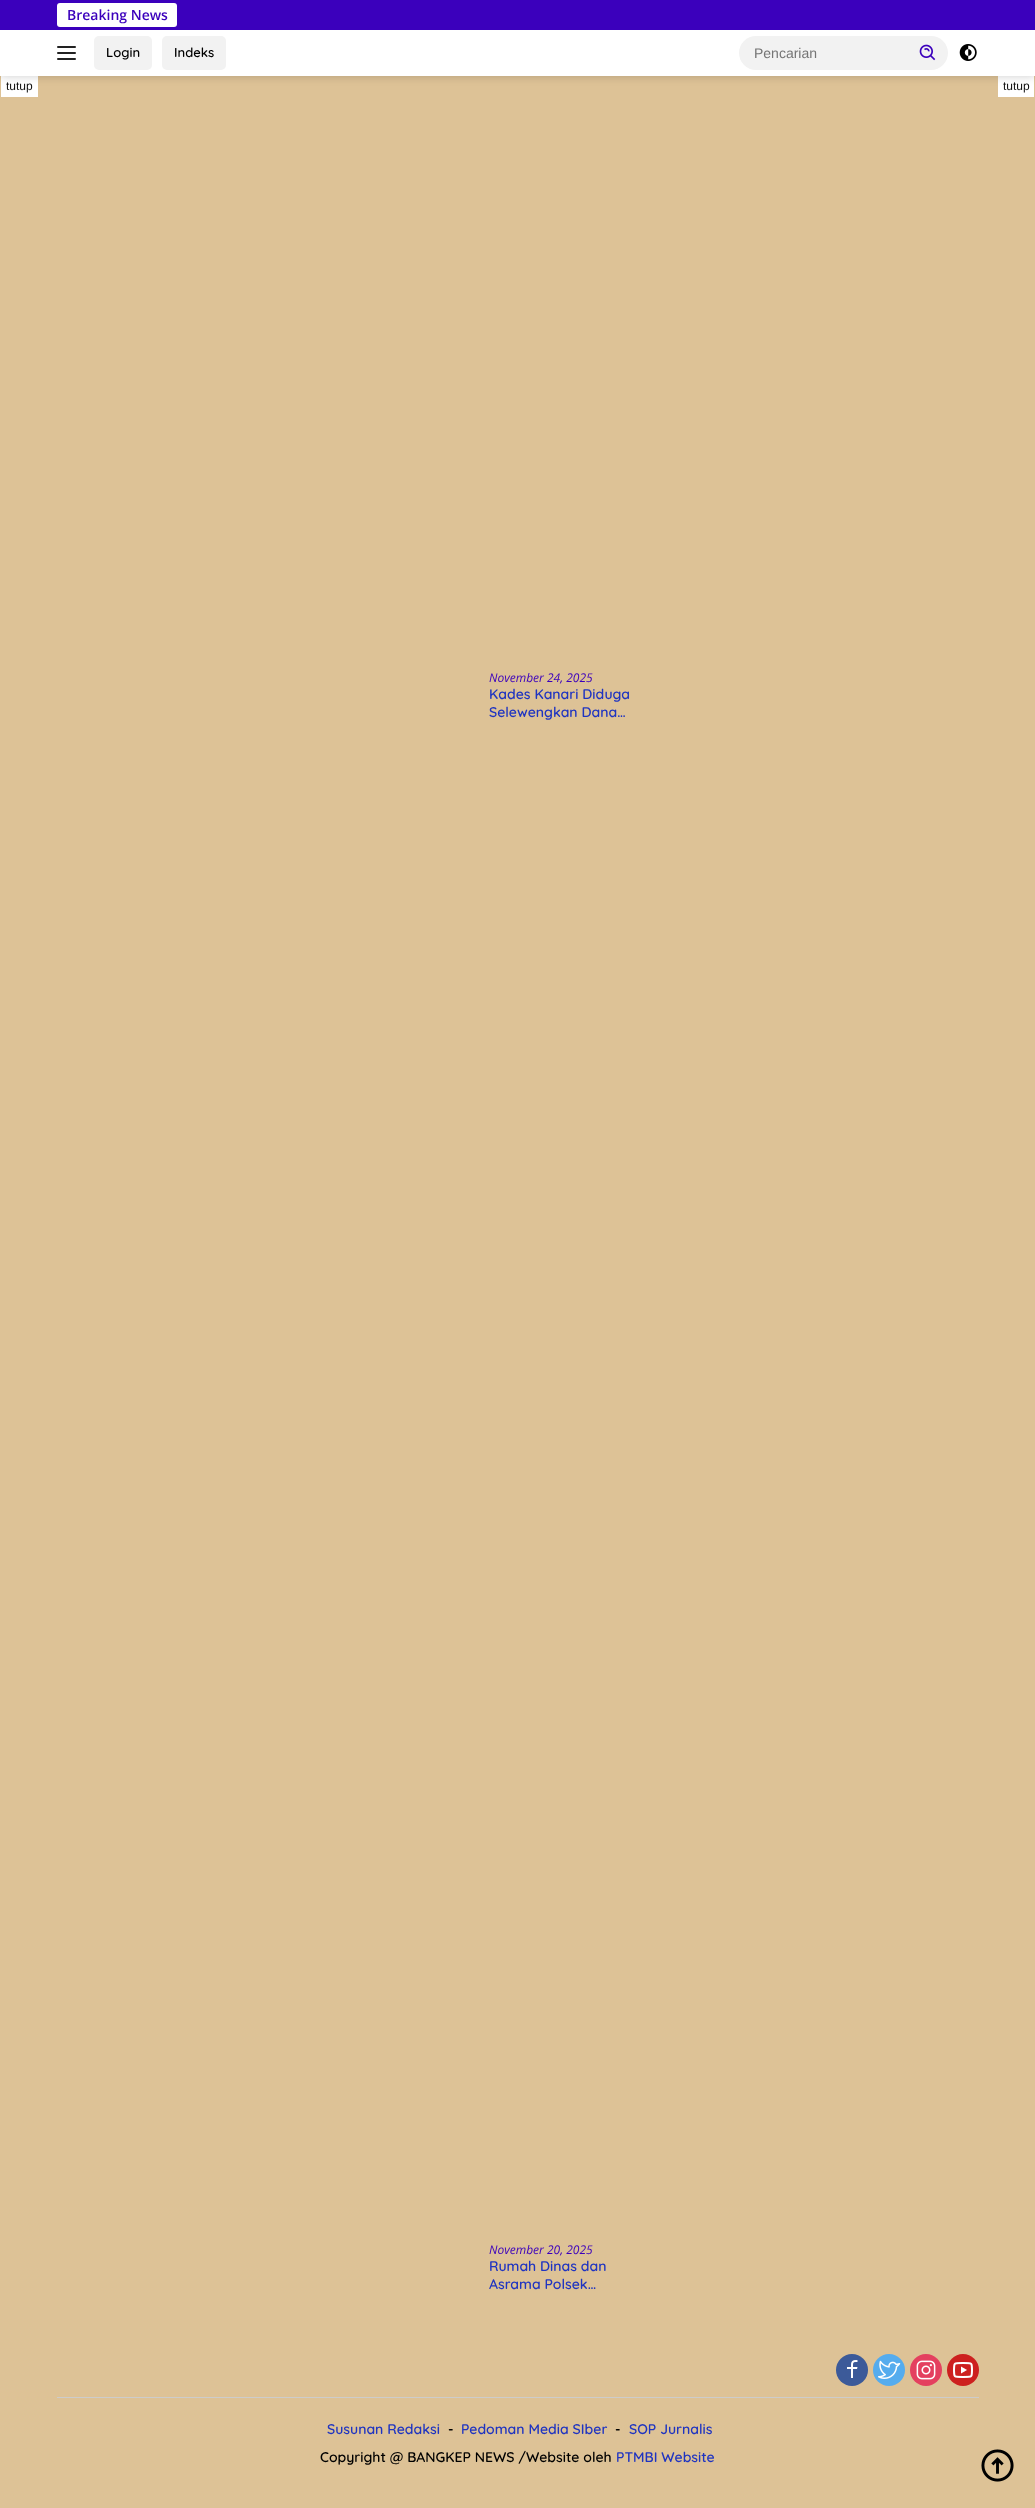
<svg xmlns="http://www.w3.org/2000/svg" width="1035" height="2508">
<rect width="100%" height="100%" fill="#ddc296"/>
<rect x="1" y="76" width="37" height="21" fill="#fff"/>
<rect x="998" y="76" width="36" height="21" fill="#fff"/>
<rect width="1035" height="76" fill="#00000033" filter="blur(5px)"/>
<rect y="30" width="1035" height="46" fill="#fff"/>
<rect width="1035" height="30" fill="#3b00bc"/>
<rect x="57" y="3" width="120" height="24" rx="3" fill="#fff"/>
<text x="67" y="20" style="font-family:Open Sans;font-size:14px;font-weight:600;fill:#3b00bc">Breaking News</text>
<rect x="57" y="46" width="19" height="2" rx="1" fill="#222"/>
<rect x="57" y="52" width="19" height="2" rx="1" fill="#222"/>
<rect x="57" y="58" width="19" height="2" rx="1" fill="#222"/>
<rect x="94" y="36" width="58" height="34" rx="5" fill="#f2f2f2"/>
<text x="106" y="57" style="font-family:Quicksand;font-size:13px;font-weight:600;fill:#000">Login</text>
<rect x="162" y="36" width="64" height="34" rx="5" fill="#f2f2f2"/>
<text x="174" y="57" style="font-family:Quicksand;font-size:13px;font-weight:600;fill:#000">Indeks</text>
<rect x="739" y="36" width="209" height="34" rx="17" fill="#f2f2f2"/>
<text x="754" y="58" style="font-family:Liberation Sans;font-size:14px;fill:#757575">Pencarian</text>
<image x="919" y="44" width="17" height="17" href="media/1.png"/>
<image x="959" y="44" width="18" height="17" href="media/2.png"/>
<text x="6" y="90" style="font-family:Liberation Sans;font-size:12px;fill:#111">tutup</text>
<text x="1003" y="90" style="font-family:Liberation Sans;font-size:12px;fill:#111">tutup</text>
<text x="489" y="682" style="font-family:Open Sans;font-size:12px;font-style:italic;fill:#3b00bc">November 24, 2025</text>
<text x="489" y="699" style="font-family:Quicksand;font-size:14px;font-weight:600;fill:#1f34c1">Kades Kanari Diduga</text>
<text x="489" y="717" style="font-family:Quicksand;font-size:14px;font-weight:600;fill:#1f34c1">Selewengkan Dana…</text>
<text x="489" y="2254" style="font-family:Open Sans;font-size:12px;font-style:italic;fill:#3b00bc">November 20, 2025</text>
<text x="489" y="2271" style="font-family:Quicksand;font-size:14px;font-weight:600;fill:#1f34c1">Rumah Dinas dan</text>
<text x="489" y="2289" style="font-family:Quicksand;font-size:14px;font-weight:600;fill:#1f34c1">Asrama Polsek…</text>
<rect x="57" y="2397" width="922" height="1" fill="#ccc"/>
<circle cx="852" cy="2370" r="16" fill="#3c5a99"/>
<image x="847" y="2360" width="11" height="18" href="media/3.png"/>
<circle cx="889" cy="2370" r="16" fill="#55acee"/>
<image x="878" y="2360" width="23" height="19" href="media/4.png"/>
<circle cx="926" cy="2370" r="16" fill="#e4405f"/>
<image x="916" y="2360" width="20" height="20" href="media/5.png"/>
<circle cx="963" cy="2370" r="16" fill="#cd201f"/>
<image x="953" y="2362" width="20" height="16" href="media/6.png"/>
<text x="327" y="2434" style="font-family:Quicksand;font-size:14px;font-weight:600;fill:#1f34c1">Susunan Redaksi</text>
<text x="448" y="2434" style="font-family:Quicksand;font-size:14px;font-weight:600;fill:#000">-</text>
<text x="461" y="2434" style="font-family:Quicksand;font-size:14px;font-weight:600;fill:#1f34c1">Pedoman Media SIber</text>
<text x="615" y="2434" style="font-family:Quicksand;font-size:14px;font-weight:600;fill:#000">-</text>
<text x="629" y="2434" style="font-family:Quicksand;font-size:14px;font-weight:600;fill:#1f34c1">SOP Jurnalis</text>
<text x="320" y="2462" style="font-family:Quicksand;font-size:14px;font-weight:600;fill:#000">Copyright @ BANGKEP NEWS /Website oleh</text>
<text x="616" y="2462" style="font-family:Quicksand;font-size:14px;font-weight:600;fill:#1f34c1">PTMBI Website</text>
<image x="981" y="2449" width="33" height="33" href="media/7.png"/>
</svg>
